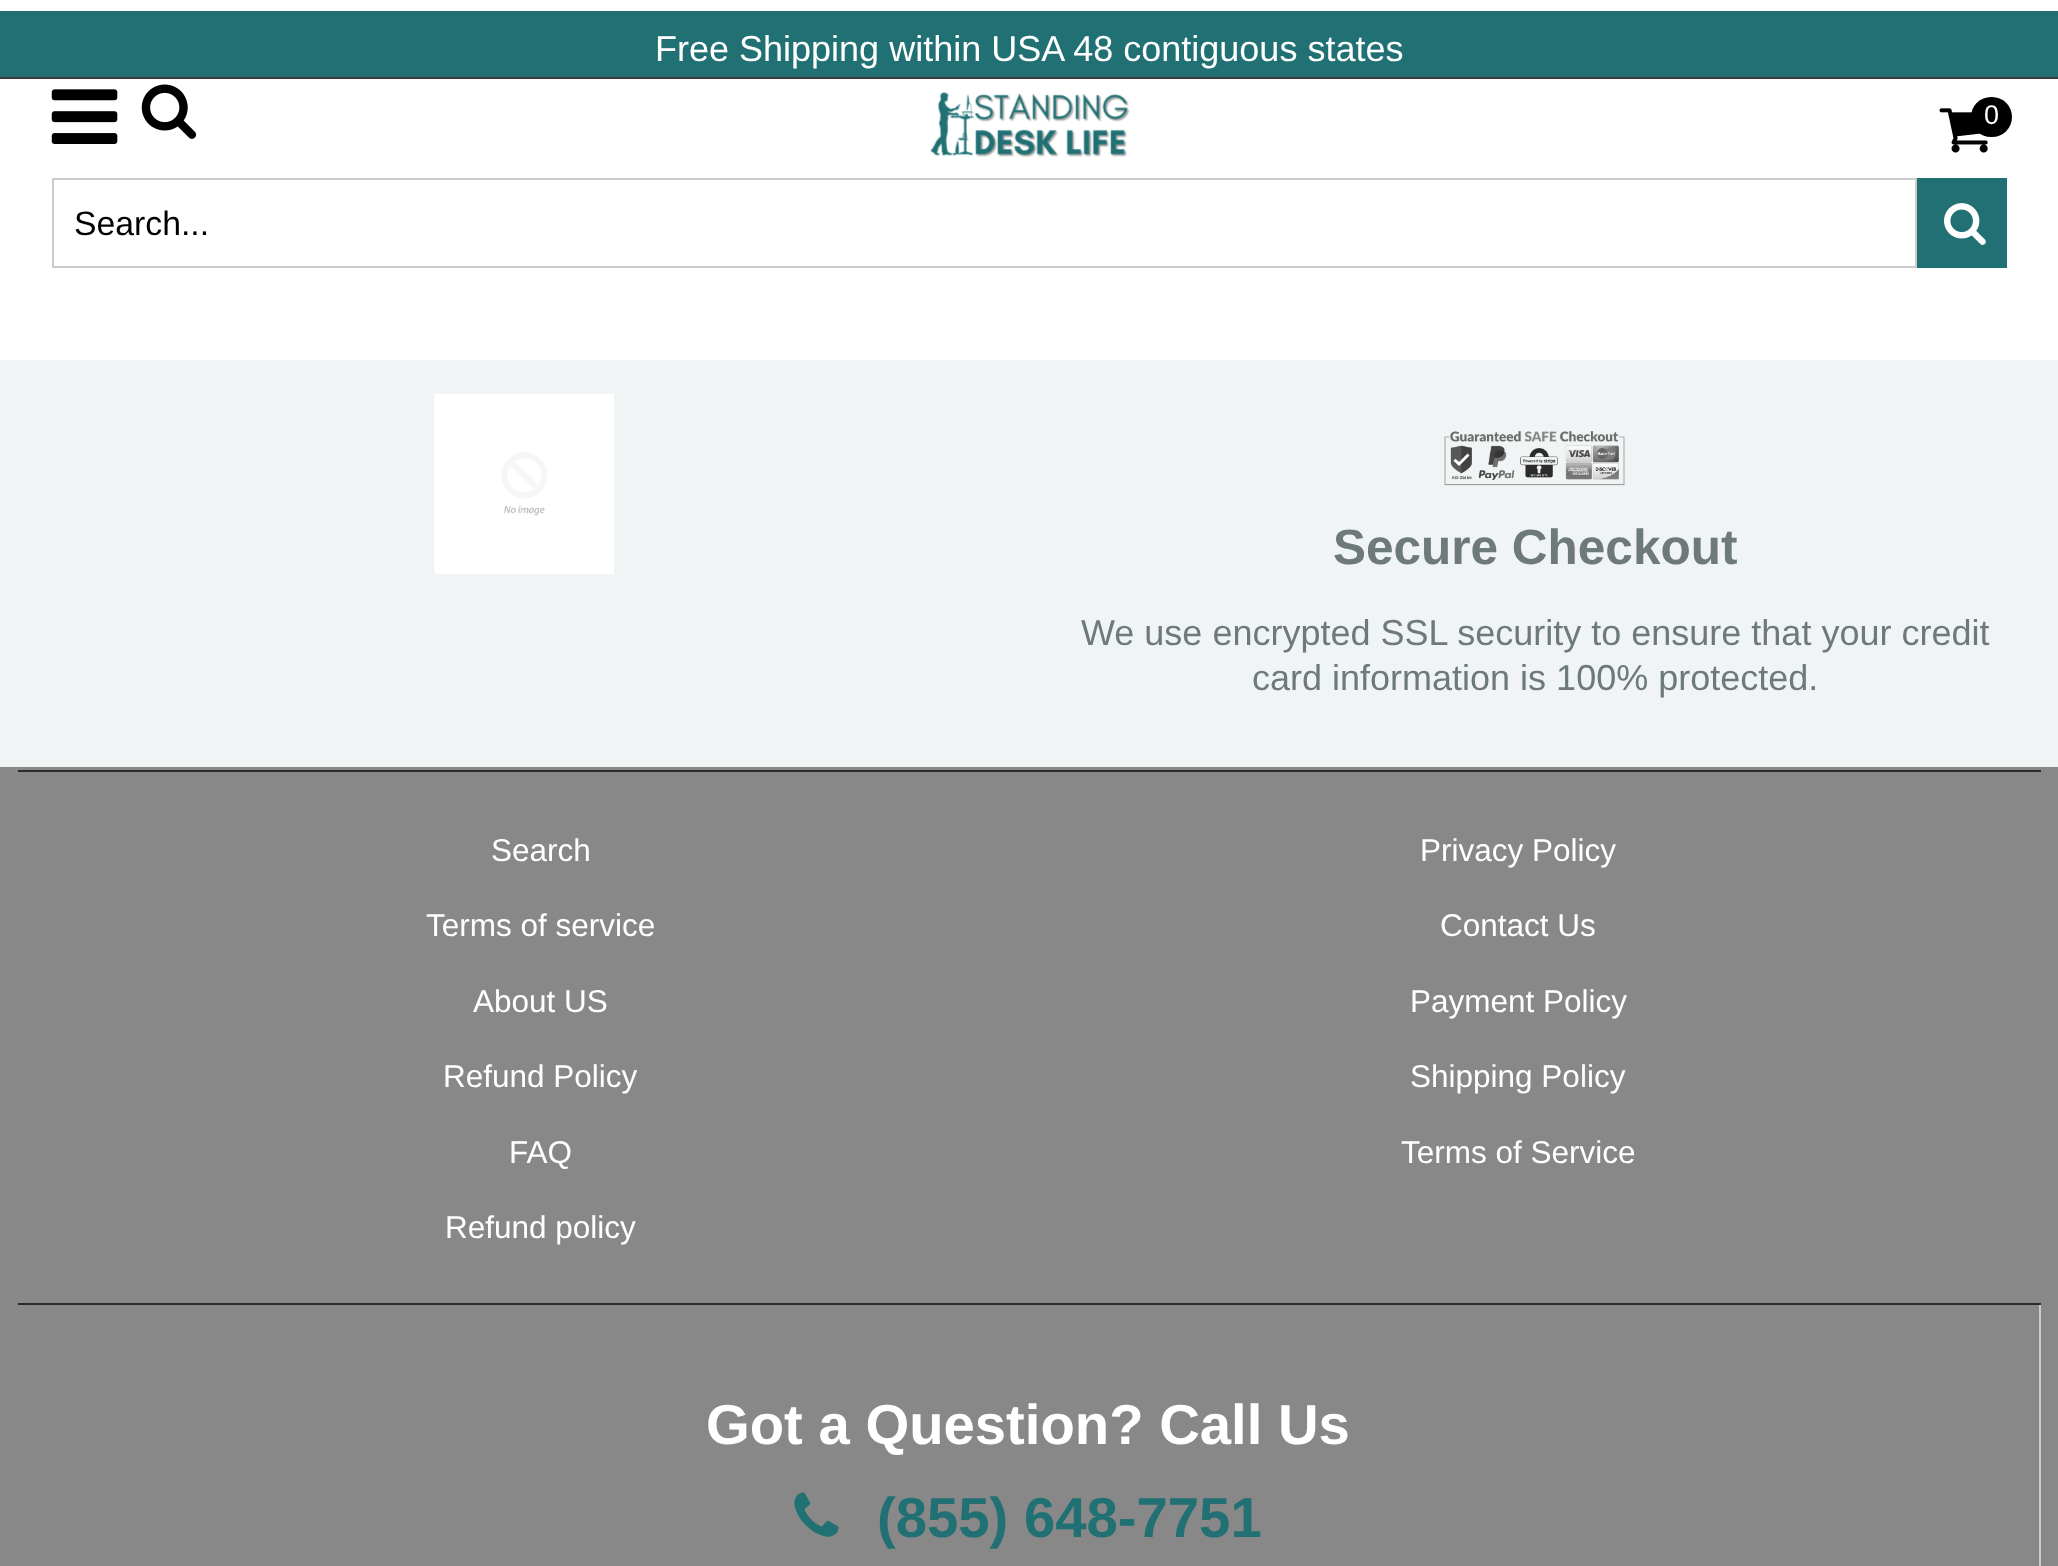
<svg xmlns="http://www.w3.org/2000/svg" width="2058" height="1566">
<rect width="100%" height="100%" fill="#fff"/>
<rect y="11" width="2058" height="66" fill="#217174"/>
<rect y="77" width="2058" height="2" fill="#3b3b3b"/>
<text x="655" y="61" style="font-family:Liberation Sans;font-size:36px;fill:#fff">Free Shipping within USA 48 contiguous states</text>
<image x="51" y="89" width="67" height="55" href="media/1.png"/>
<image x="141" y="84" width="56" height="55" href="media/2.png"/>
<image x="930" y="92" width="200" height="66" href="media/3.png"/>
<image x="1939" y="108" width="49" height="45" href="media/4.png"/>
<rect x="1971" y="97" width="41" height="40" rx="20" fill="#000"/>
<text x="1984" y="124" style="font-family:Liberation Sans;font-size:27px;fill:#fff">0</text>
<rect x="53" y="179" width="1863" height="88" fill="none" stroke="#ccc" stroke-width="2"/>
<text x="74" y="235" style="font-family:Liberation Sans;font-size:33.75px;fill:#000">Search...</text>
<rect x="1917" y="178" width="90" height="90" fill="#217174"/>
<image x="1944" y="203" width="42" height="42" href="media/5.png"/>
<rect y="360" width="2058" height="407" fill="#f1f4f5"/>
<image x="434" y="394" width="180" height="180" href="media/6.png"/>
<image x="1444" y="431" width="181" height="55" href="media/7.png"/>
<text x="1333" y="564" style="font-family:Liberation Sans;font-size:49.5px;font-weight:bold;fill:#6e797a">Secure Checkout</text>
<text x="1081" y="645" style="font-family:Liberation Sans;font-size:36px;fill:#6e797a">We use encrypted SSL security to ensure that your credit</text>
<text x="1252" y="690" style="font-family:Liberation Sans;font-size:36px;fill:#6e797a">card information is 100% protected.</text>
<rect y="767" width="2058" height="799" fill="#888"/>
<rect x="18" y="770" width="2023" height="2" fill="#2b2b2b"/>
<rect x="18" y="1303" width="2023" height="2" fill="#2b2b2b"/>
<text x="491" y="861" style="font-family:Liberation Sans;font-size:31.5px;fill:#fff">Search</text>
<text x="1420" y="861" style="font-family:Liberation Sans;font-size:31.5px;fill:#fff">Privacy Policy</text>
<text x="426" y="936" style="font-family:Liberation Sans;font-size:31.5px;fill:#fff">Terms of service</text>
<text x="1440" y="936" style="font-family:Liberation Sans;font-size:31.5px;fill:#fff">Contact Us</text>
<text x="473" y="1012" style="font-family:Liberation Sans;font-size:31.5px;fill:#fff">About US</text>
<text x="1410" y="1012" style="font-family:Liberation Sans;font-size:31.5px;fill:#fff">Payment Policy</text>
<text x="443" y="1087" style="font-family:Liberation Sans;font-size:31.5px;fill:#fff">Refund Policy</text>
<text x="1410" y="1087" style="font-family:Liberation Sans;font-size:31.5px;fill:#fff">Shipping Policy</text>
<text x="509" y="1163" style="font-family:Liberation Sans;font-size:31.5px;fill:#fff">FAQ</text>
<text x="1401" y="1163" style="font-family:Liberation Sans;font-size:31.5px;fill:#fff">Terms of Service</text>
<text x="445" y="1238" style="font-family:Liberation Sans;font-size:31.5px;fill:#fff">Refund policy</text>
<rect x="2039" y="1305" width="2" height="261" fill="#ccc"/>
<text x="706" y="1444" style="font-family:Liberation Sans;font-size:56.25px;font-weight:bold;fill:#fff">Got a Question? Call Us</text>
<image x="794" y="1492" width="45" height="45" href="media/8.png"/>
<text x="877" y="1537" style="font-family:Liberation Sans;font-size:56.25px;font-weight:bold;fill:#217174">(855) 648-7751</text>
</svg>
